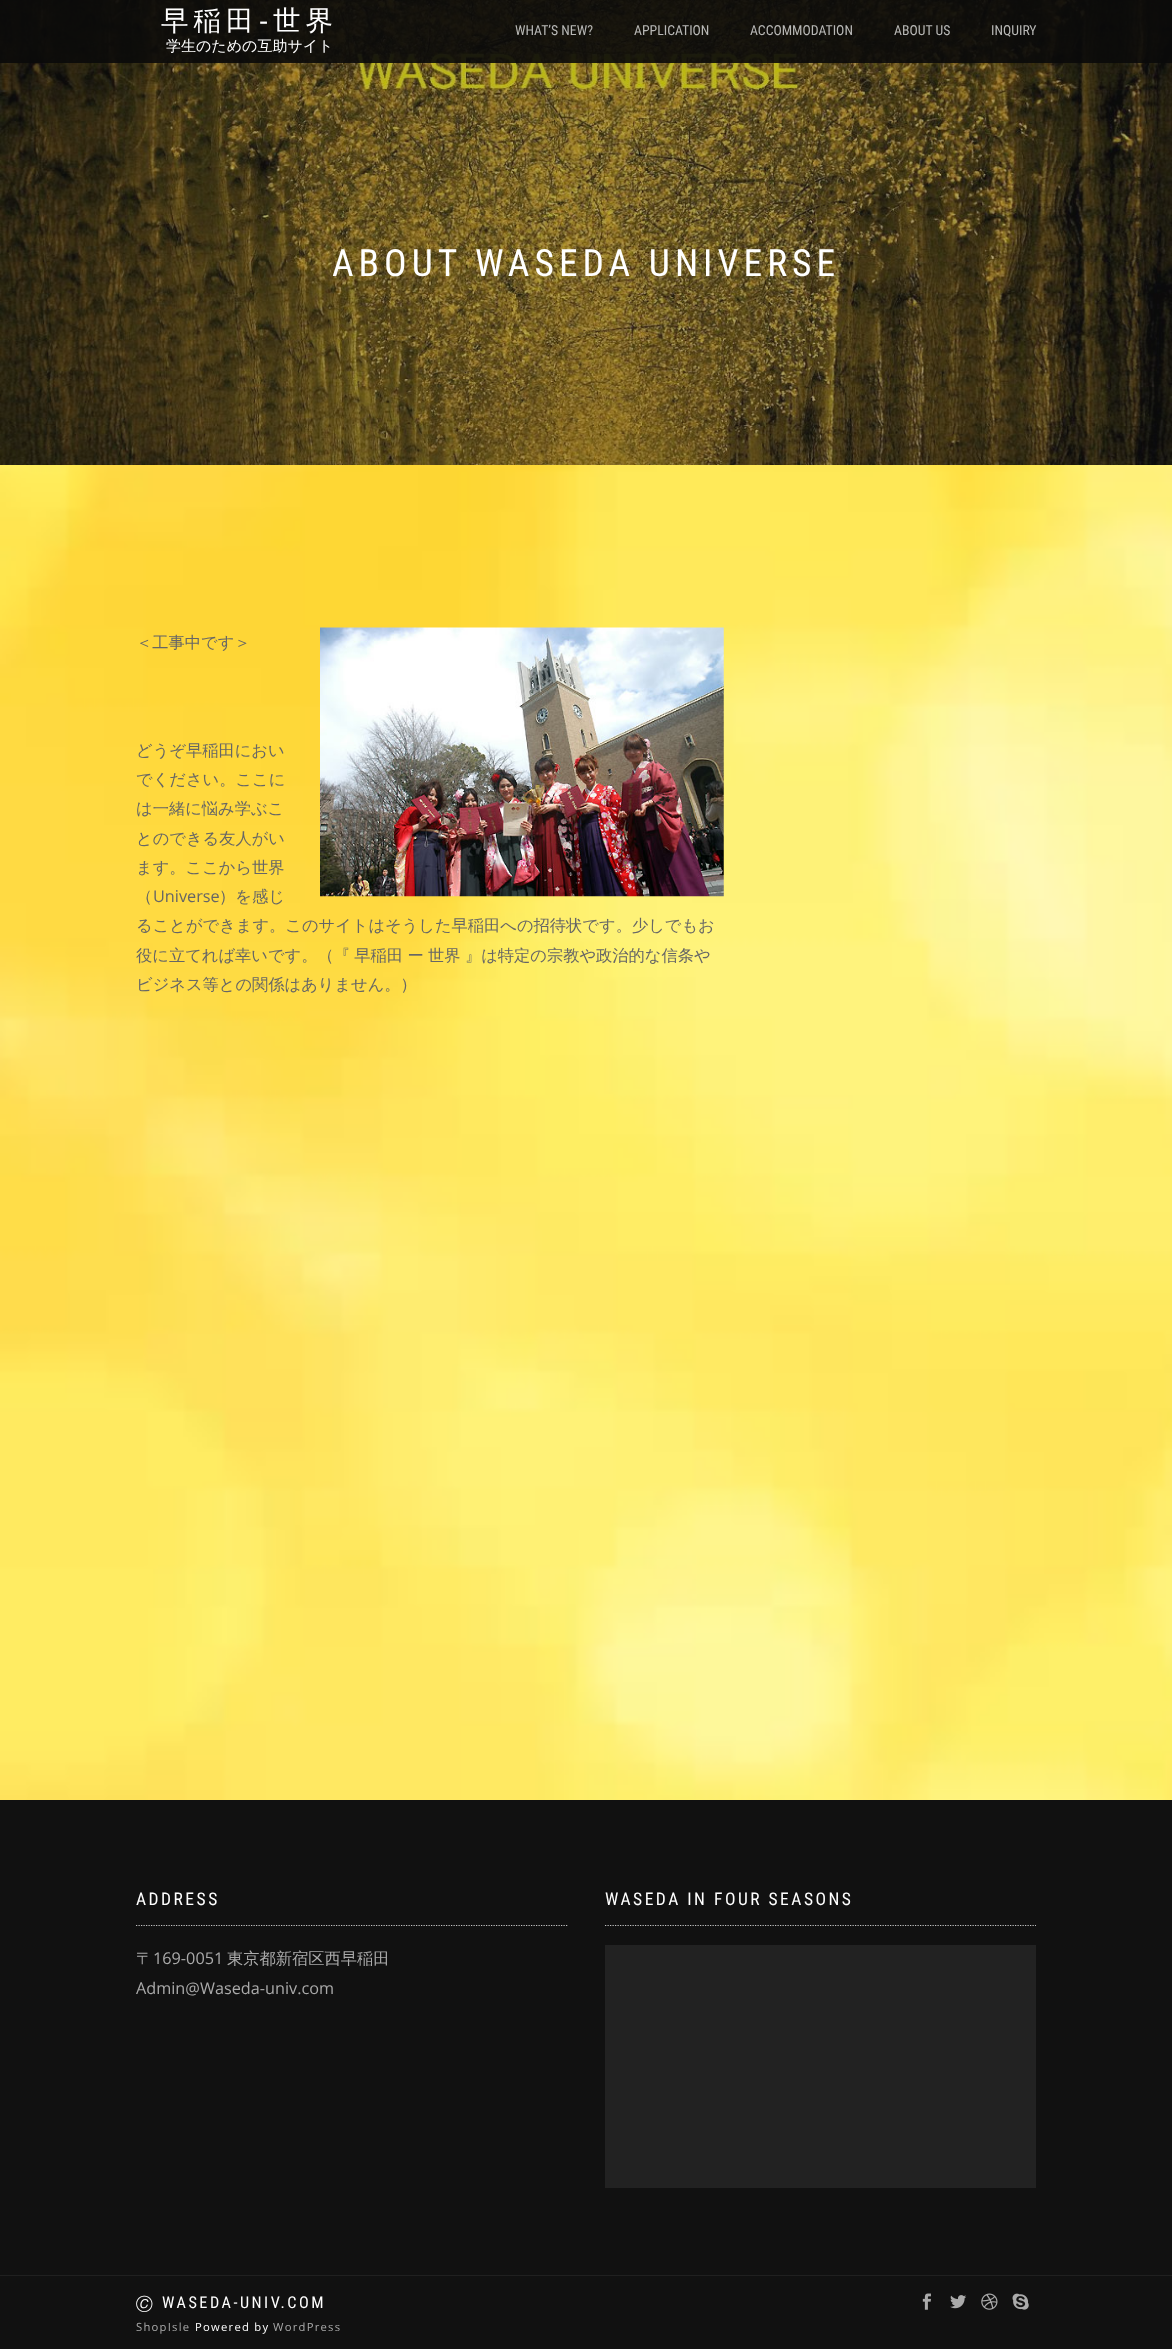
<svg xmlns="http://www.w3.org/2000/svg" width="1172" height="2349">
<rect width="100%" height="100%" fill="#fff"/>
<image x="0" y="465" width="1172" height="1335" href="media/1.png"/>
<image x="0" y="0" width="1172" height="465" href="media/2.png"/>
<rect width="1172" height="63" fill="#0a0a0ae6"/>
<text x="161" y="30" style="font-family:WenQuanYi Zen Hei;font-size:27.5px;font-weight:500;letter-spacing:5px;fill:#fff">早稲田</text>
<text x="259" y="30" style="font-family:Liberation Sans;font-size:27.5px;letter-spacing:5px;fill:#fff">‐</text>
<text x="273" y="30" style="font-family:WenQuanYi Zen Hei;font-size:27.5px;font-weight:500;letter-spacing:5px;fill:#fff">世界</text>
<text x="166" y="51" style="font-family:WenQuanYi Zen Hei;font-size:15px;font-weight:500;fill:#fff">学生のための互助サイト</text>
<text x="515" y="35" style="font-family:Roboto Condensed;font-size:13.75px;fill:#b8b8b6">WHAT’S NEW?</text>
<text x="634" y="35" style="font-family:Roboto Condensed;font-size:13.75px;fill:#b8b8b6">APPLICATION</text>
<text x="750" y="35" style="font-family:Roboto Condensed;font-size:13.75px;fill:#b8b8b6">ACCOMMODATION</text>
<text x="894" y="35" style="font-family:Roboto Condensed;font-size:13.75px;fill:#b8b8b6">ABOUT US</text>
<text x="991" y="35" style="font-family:Roboto Condensed;font-size:13.75px;fill:#b8b8b6">INQUIRY</text>
<text x="332" y="276" style="font-family:Roboto Condensed;font-size:37.5px;letter-spacing:5px;fill:#fff">ABOUT WASEDA UNIVERSE</text>
<text x="136" y="648" style="font-family:WenQuanYi Zen Hei;font-size:16.25px;font-weight:500;fill:#666">＜工事中です＞</text>
<image x="320" y="627" width="404" height="270" href="media/3.png"/>
<text x="136" y="756" style="font-family:WenQuanYi Zen Hei;font-size:16.25px;font-weight:500;fill:#666">どうぞ早稲田におい</text>
<text x="136" y="785" style="font-family:WenQuanYi Zen Hei;font-size:16.25px;font-weight:500;fill:#666">でください。ここに</text>
<text x="136" y="814" style="font-family:WenQuanYi Zen Hei;font-size:16.25px;font-weight:500;fill:#666">は一緒に悩み学ぶこ</text>
<text x="136" y="844" style="font-family:WenQuanYi Zen Hei;font-size:16.25px;font-weight:500;fill:#666">とのできる友人がい</text>
<text x="136" y="873" style="font-family:WenQuanYi Zen Hei;font-size:16.25px;font-weight:500;fill:#666">ます。ここから世界</text>
<text x="136" y="902" style="font-family:WenQuanYi Zen Hei;font-size:16.25px;font-weight:500;fill:#666">（</text>
<text x="153" y="902" style="font-family:Open Sans;font-size:16.25px;fill:#666">Universe</text>
<text x="219" y="902" style="font-family:WenQuanYi Zen Hei;font-size:16.25px;font-weight:500;fill:#666">）を感じ</text>
<text x="136" y="931" style="font-family:WenQuanYi Zen Hei;font-size:16.25px;font-weight:500;fill:#666">ることができます。このサイトはそうした早稲田への招待状です。少しでもお</text>
<text x="136" y="961" word-spacing="-0.5" style="font-family:WenQuanYi Zen Hei;font-size:16.25px;font-weight:500;fill:#666">役に立てれば幸いです。（『 早稲田 ー 世界 』は特定の宗教や政治的な信条や</text>
<text x="136" y="990" style="font-family:WenQuanYi Zen Hei;font-size:16.25px;font-weight:500;fill:#666">ビジネス等との関係はありません。）</text>
<rect y="1800" width="1172" height="475" fill="#111"/>
<path d="M136 1925.5h431.5" fill="none" stroke="#c2c2c2" stroke-width="1.2" stroke-dasharray="1.25 1.25"/>
<text x="136" y="1905" style="font-family:Roboto Condensed;font-size:17.5px;letter-spacing:2.5px;fill:#fff">ADDRESS</text>
<text x="136" y="1964" style="font-family:WenQuanYi Zen Hei;font-size:16.25px;font-weight:500;fill:#aaa">〒</text>
<text x="153" y="1964" style="font-family:Open Sans;font-size:16.25px;fill:#aaa">169-0051</text>
<text x="227" y="1964" style="font-family:WenQuanYi Zen Hei;font-size:16.25px;font-weight:500;fill:#aaa">東京都新宿区西早稲田</text>
<text x="136" y="1994" style="font-family:Open Sans;font-size:16.25px;fill:#aaa">Admin@Waseda-univ.com</text>
<path d="M605 1925.5h431" fill="none" stroke="#c2c2c2" stroke-width="1.2" stroke-dasharray="1.25 1.25"/>
<text x="605" y="1905" style="font-family:Roboto Condensed;font-size:17.5px;letter-spacing:2.5px;fill:#fff">WASEDA IN FOUR SEASONS</text>
<rect x="605" y="1945" width="431" height="243" fill="#222"/>
<rect y="2276" width="1172" height="73" fill="#111"/>
<rect y="2275" width="1172" height="1" fill="#202020"/>
<text x="136" y="2308" style="font-family:FreeSans;font-size:16.25px;letter-spacing:2.5px;fill:#fff">🄫</text>
<text x="162" y="2308" style="font-family:Roboto Condensed;font-size:16.25px;letter-spacing:2.5px;fill:#fff">WASEDA-UNIV.COM</text>
<text x="136" y="2331" style="font-family:Open Sans;font-size:11.25px;letter-spacing:1.25px;fill:#aaa">ShopIsle</text>
<text x="195" y="2331" style="font-family:Open Sans;font-size:11.25px;letter-spacing:1.25px;fill:#fff">Powered by</text>
<text x="273" y="2331" style="font-family:Open Sans;font-size:11.25px;letter-spacing:1.25px;fill:#aaa">WordPress</text>
<image x="922" y="2293" width="9" height="17" href="media/4.png"/>
<image x="950" y="2295" width="17" height="14" href="media/5.png"/>
<image x="981" y="2293" width="17" height="17" href="media/6.png"/>
<image x="1012" y="2293" width="17" height="17" href="media/7.png"/>
</svg>
